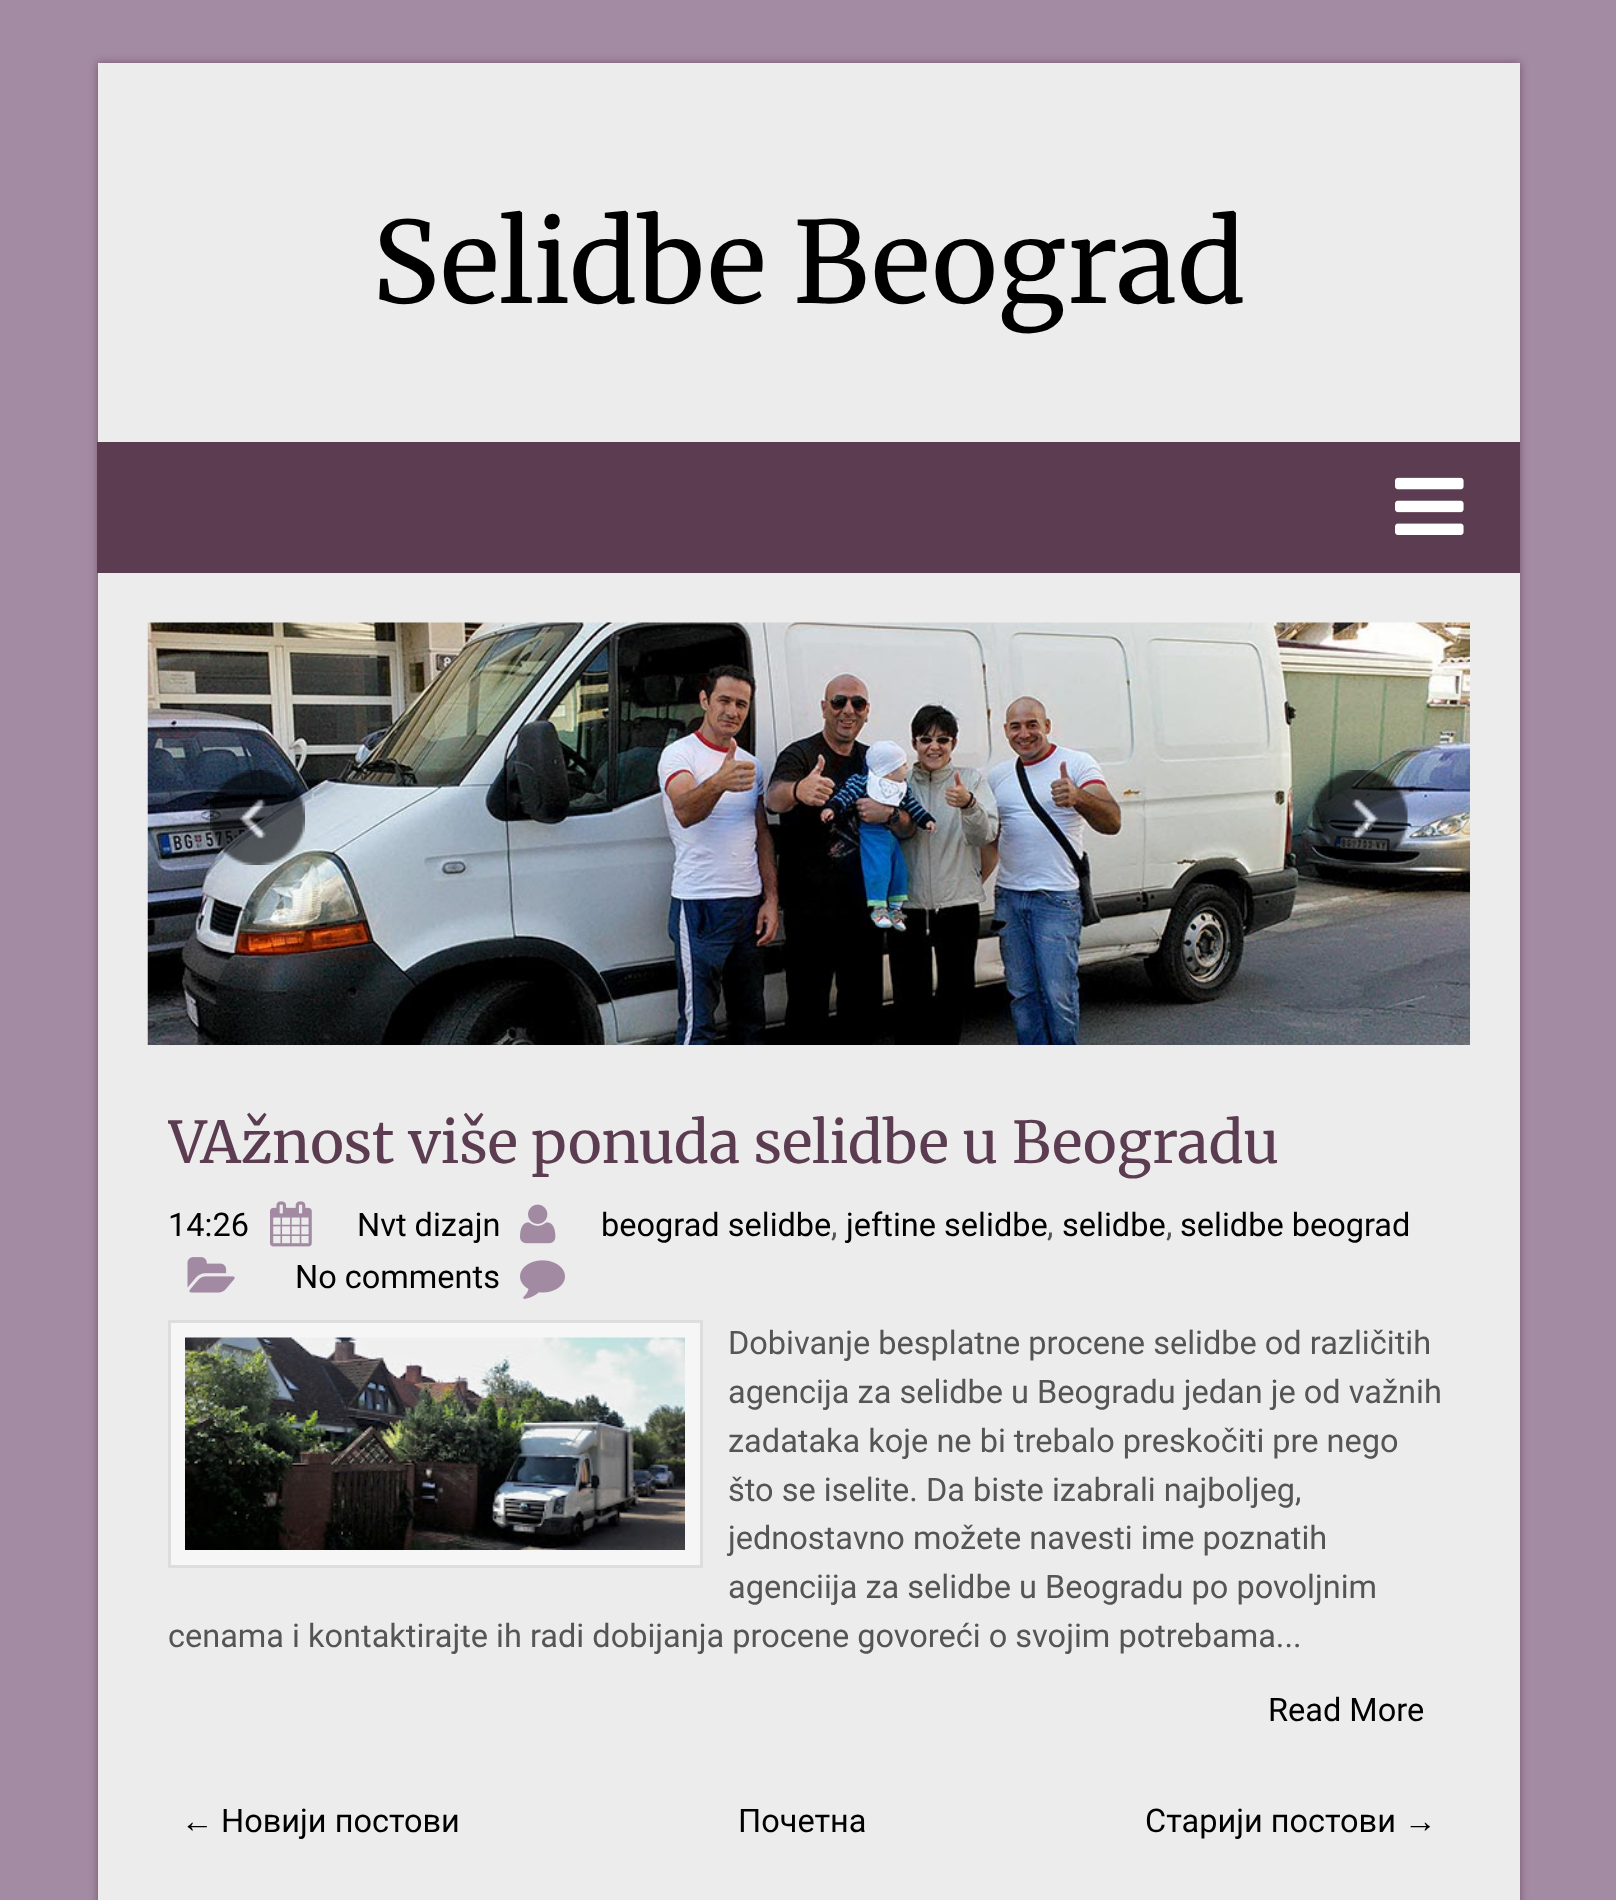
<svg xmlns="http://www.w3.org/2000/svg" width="1616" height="1900">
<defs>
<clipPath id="clip1"><rect x="168" y="1108" width="1282" height="652"/></clipPath>
</defs>
<rect width="100%" height="100%" fill="#a38ba3"/>
<rect x="98" y="63" width="1422" height="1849" fill="#745168" filter="blur(4px)"/>
<rect x="98" y="63" width="1422" height="379" fill="#ececec"/>
<text x="372" y="303" style="font-family:Merriweather;font-size:112.5px;font-weight:300;fill:#000">Selidbe Beograd</text>
<rect x="97" y="442" width="1423" height="131" fill="#5c3c50"/>
<image x="1395" y="477" width="69" height="58" href="media/1.png"/>
<rect x="98" y="573" width="1422" height="1327" fill="#ececec"/>
<image x="147" y="622" width="1323" height="423" href="media/2.png"/>
<image x="210" y="770" width="95" height="95" href="media/3.png"/>
<image x="1312" y="770" width="96" height="95" href="media/4.png"/>
<g clip-path="url(#clip1)">
<text x="168" y="1163" style="font-family:Merriweather;font-size:57.5px;font-weight:300;fill:#5c3c50">VAžnost više ponuda selidbe u Beogradu</text>
</g>
<text x="168" y="1236" style="font-family:Roboto;font-size:32.5px;fill:#000">14:26</text>
<image x="270" y="1201" width="42" height="46" href="media/5.png"/>
<text x="357" y="1236" style="font-family:Roboto;font-size:32.5px;fill:#000">Nvt dizajn</text>
<image x="520" y="1204" width="36" height="40" href="media/6.png"/>
<text x="601" y="1236" style="font-family:Roboto;font-size:32.5px;fill:#000">beograd selidbe</text>
<text x="831" y="1236" style="font-family:Roboto;font-size:32.5px;fill:#555">,</text>
<text x="846" y="1236" style="font-family:Roboto;font-size:32.5px;fill:#000">jeftine selidbe</text>
<text x="1047" y="1236" style="font-family:Roboto;font-size:32.5px;fill:#555">,</text>
<text x="1062" y="1236" style="font-family:Roboto;font-size:32.5px;fill:#000">selidbe</text>
<text x="1166" y="1236" style="font-family:Roboto;font-size:32.5px;fill:#555">,</text>
<text x="1180" y="1236" style="font-family:Roboto;font-size:32.5px;fill:#000">selidbe beograd</text>
<image x="187" y="1257" width="48" height="36" href="media/7.png"/>
<text x="295" y="1288" style="font-family:Roboto;font-size:32.5px;fill:#000">No comments</text>
<image x="520" y="1260" width="45" height="39" href="media/8.png"/>
<rect x="169.5" y="1321.5" width="532" height="245" fill="#f6f6f6" stroke="#ddd" stroke-width="3"/>
<image x="185" y="1337" width="500" height="213" href="media/9.png"/>
<text x="728" y="1354" style="font-family:Roboto;font-size:32.5px;fill:#555">Dobivanje besplatne procene selidbe od različitih</text>
<text x="728" y="1403" style="font-family:Roboto;font-size:32.5px;fill:#555">agencija za selidbe u Beogradu jedan je od važnih</text>
<text x="728" y="1452" style="font-family:Roboto;font-size:32.5px;fill:#555">zadataka koje ne bi trebalo preskočiti pre nego</text>
<text x="728" y="1501" style="font-family:Roboto;font-size:32.5px;fill:#555">što se iselite. Da biste izabrali najboljeg,</text>
<text x="728" y="1549" style="font-family:Roboto;font-size:32.5px;fill:#555">jednostavno možete navesti ime poznatih</text>
<text x="728" y="1598" style="font-family:Roboto;font-size:32.5px;fill:#555">agenciija za selidbe u Beogradu po povoljnim</text>
<text x="168" y="1647" style="font-family:Roboto;font-size:32.5px;fill:#555">cenama i kontaktirajte ih radi dobijanja procene govoreći o svojim potrebama...</text>
<text x="1268" y="1721" style="font-family:Roboto;font-size:32.5px;fill:#000">Read More</text>
<text x="181" y="1832" style="font-family:Liberation Sans;font-size:32.5px;fill:#000">←</text>
<text x="221" y="1832" style="font-family:Roboto;font-size:32.5px;fill:#000">Новији постови</text>
<text x="738" y="1832" style="font-family:Roboto;font-size:32.5px;fill:#000">Почетна</text>
<text x="1145" y="1832" style="font-family:Roboto;font-size:32.5px;fill:#000">Старији постови</text>
<text x="1404" y="1832" style="font-family:Liberation Sans;font-size:32.5px;fill:#000">→</text>
</svg>
